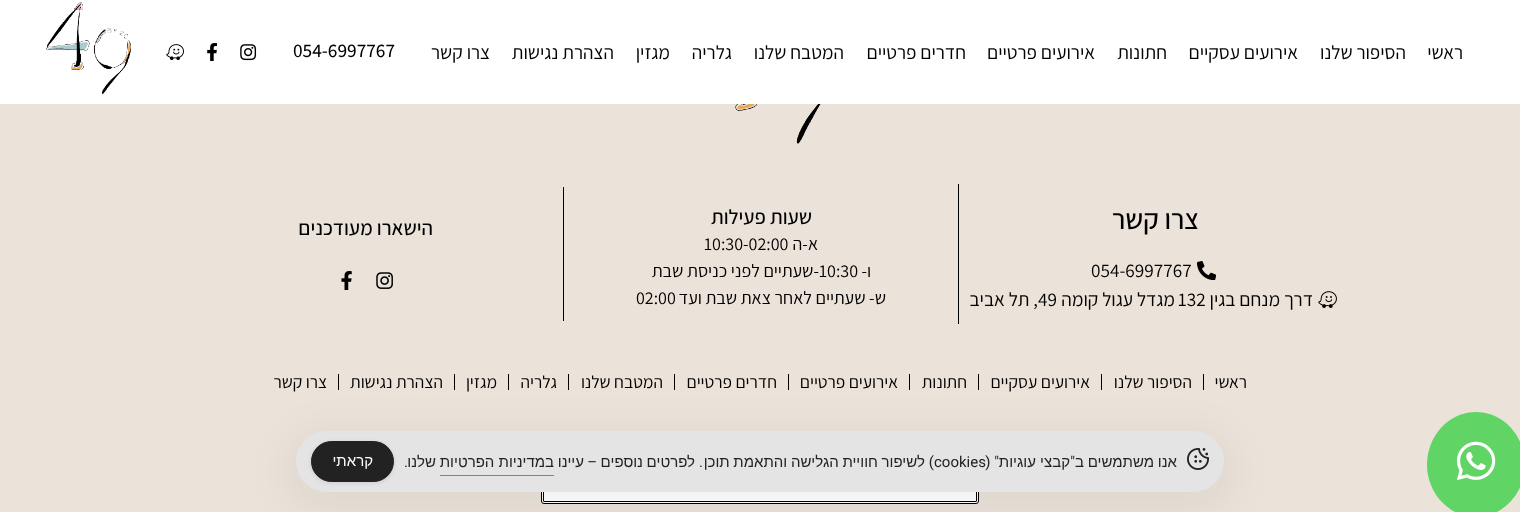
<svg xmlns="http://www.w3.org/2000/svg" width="1520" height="512">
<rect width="100%" height="100%" fill="#ebe3da"/>
<rect width="1520" height="104" fill="#fff"/>
<text x="1463" y="59" style="font-family:Assistant;font-size:19.25px;direction:rtl;fill:#000">ראשי</text>
<text x="1406" y="59" style="font-family:Assistant;font-size:19.25px;direction:rtl;fill:#000">הסיפור שלנו</text>
<text x="1298" y="59" style="font-family:Assistant;font-size:19.25px;direction:rtl;fill:#000">אירועים עסקיים</text>
<text x="1167" y="59" style="font-family:Assistant;font-size:19.25px;direction:rtl;fill:#000">חתונות</text>
<text x="1095" y="59" style="font-family:Assistant;font-size:19.25px;direction:rtl;fill:#000">אירועים פרטיים</text>
<text x="966" y="59" style="font-family:Assistant;font-size:19.25px;direction:rtl;fill:#000">חדרים פרטיים</text>
<text x="844" y="59" style="font-family:Assistant;font-size:19.25px;direction:rtl;fill:#000">המטבח שלנו</text>
<text x="732" y="59" style="font-family:Assistant;font-size:19.25px;direction:rtl;fill:#000">גלריה</text>
<text x="670" y="59" style="font-family:Assistant;font-size:19.25px;direction:rtl;fill:#000">מגזין</text>
<text x="614" y="59" style="font-family:Assistant;font-size:19.25px;direction:rtl;fill:#000">הצהרת נגישות</text>
<text x="490" y="59" style="font-family:Assistant;font-size:19.25px;direction:rtl;fill:#000">צרו קשר</text>
<text x="293" y="57" style="font-family:Assistant;font-size:19.25px;font-weight:500;fill:#000">054-6997767</text>
<image x="240" y="44" width="17" height="17" href="media/1.png"/>
<image x="207" y="43" width="10" height="18" href="media/2.png"/>
<image x="166" y="44" width="18" height="17" href="media/3.png"/>
<image x="45" y="2" width="86" height="92" href="media/4.png"/>
<image x="735" y="104" width="86" height="40" href="media/5.png"/>
<rect x="958" y="184" width="1" height="140" fill="#000"/>
<text x="1199" y="229" style="font-family:Assistant;font-size:28px;font-weight:500;direction:rtl;fill:#000">צרו קשר</text>
<image x="1197" y="261" width="19" height="19" href="media/6.png"/>
<text x="1091" y="277" style="font-family:Assistant;font-size:19.25px;fill:#000">054-6997767</text>
<image x="1318" y="291" width="19" height="17" href="media/7.png"/>
<text x="1313" y="306" style="font-family:Assistant;font-size:19.25px;direction:rtl;fill:#000">דרך מנחם בגין</text>
<text x="1178" y="306" style="font-family:Assistant;font-size:19.25px;fill:#000">132</text>
<text x="1175" y="306" style="font-family:Assistant;font-size:19.25px;direction:rtl;fill:#000">מגדל עגול קומה</text>
<text x="1038" y="306" style="font-family:Assistant;font-size:19.25px;fill:#000">49</text>
<text x="1038" y="306" style="font-family:Assistant;font-size:19.25px;direction:rtl;fill:#000">, תל אביב</text>
<rect x="563" y="187" width="1" height="134" fill="#000"/>
<text x="812" y="224" style="font-family:Assistant;font-size:20.75px;font-weight:500;direction:rtl;fill:#000">שעות פעילות</text>
<text x="818" y="250" style="font-family:Assistant;font-size:18px;direction:rtl;fill:#000">א-ה</text>
<text x="704" y="250" style="font-family:Assistant;font-size:18px;fill:#000">10:30-02:00</text>
<text x="871" y="277" style="font-family:Assistant;font-size:18px;direction:rtl;fill:#000">ו-</text>
<text x="819" y="277" style="font-family:Assistant;font-size:18px;fill:#000">10:30</text>
<text x="819" y="277" style="font-family:Assistant;font-size:18px;direction:rtl;fill:#000">-שעתיים לפני כניסת שבת</text>
<text x="886" y="304" style="font-family:Assistant;font-size:18px;direction:rtl;fill:#000">ש- שעתיים לאחר צאת שבת ועד</text>
<text x="636" y="304" style="font-family:Assistant;font-size:18px;fill:#000">02:00</text>
<text x="433" y="235" style="font-family:Assistant;font-size:20.75px;font-weight:500;direction:rtl;fill:#000">הישארו מעודכנים</text>
<image x="376" y="272" width="17" height="17" href="media/8.png"/>
<image x="341" y="271" width="11" height="19" href="media/9.png"/>
<text x="1247" y="388" style="font-family:Assistant;font-size:17.5px;direction:rtl;fill:#000">ראשי</text>
<rect x="1203" y="374" width="1" height="16" fill="#000"/>
<text x="1192" y="388" style="font-family:Assistant;font-size:17.5px;direction:rtl;fill:#000">הסיפור שלנו</text>
<rect x="1101" y="374" width="1" height="16" fill="#000"/>
<text x="1090" y="388" style="font-family:Assistant;font-size:17.5px;direction:rtl;fill:#000">אירועים עסקיים</text>
<rect x="978" y="374" width="1" height="16" fill="#000"/>
<text x="967" y="388" style="font-family:Assistant;font-size:17.5px;direction:rtl;fill:#000">חתונות</text>
<rect x="909" y="374" width="1" height="16" fill="#000"/>
<text x="898" y="388" style="font-family:Assistant;font-size:17.5px;direction:rtl;fill:#000">אירועים פרטיים</text>
<rect x="788" y="374" width="1" height="16" fill="#000"/>
<text x="777" y="388" style="font-family:Assistant;font-size:17.5px;direction:rtl;fill:#000">חדרים פרטיים</text>
<rect x="674" y="374" width="1" height="16" fill="#000"/>
<text x="663" y="388" style="font-family:Assistant;font-size:17.5px;direction:rtl;fill:#000">המטבח שלנו</text>
<rect x="568" y="374" width="1" height="16" fill="#000"/>
<text x="557" y="388" style="font-family:Assistant;font-size:17.5px;direction:rtl;fill:#000">גלריה</text>
<rect x="508" y="374" width="1" height="16" fill="#000"/>
<text x="497" y="388" style="font-family:Assistant;font-size:17.5px;direction:rtl;fill:#000">מגזין</text>
<rect x="454" y="374" width="1" height="16" fill="#000"/>
<text x="443" y="388" style="font-family:Assistant;font-size:17.5px;direction:rtl;fill:#000">הצהרת נגישות</text>
<rect x="338" y="374" width="1" height="16" fill="#000"/>
<text x="327" y="388" style="font-family:Assistant;font-size:17.5px;direction:rtl;fill:#000">צרו קשר</text>
<ellipse cx="1476" cy="464.5" rx="49" ry="52.5" fill="#61d466"/>
<image x="1456" y="441" width="40" height="40" href="media/10.png"/>
<rect x="541.5" y="469.5" width="437" height="34" rx="2.5" fill="#fff" stroke="#000"/>
<rect x="543.5" y="471.5" width="433" height="30" rx="0.5" fill="none" stroke="#000"/>
<rect x="286" y="431" width="948" height="81" rx="40.5" fill="#0000000d" filter="blur(20px)"/>
<rect x="296" y="431" width="928" height="61" rx="30.5" fill="#e4e4e4"/>
<image x="1187" y="448" width="22" height="22" href="media/11.png"/>
<text x="1177" y="467" style="font-family:Liberation Sans;font-size:15px;direction:rtl;fill:#222">אנו</text>
<text x="1154" y="467" style="font-family:Liberation Sans;font-size:15px;direction:rtl;fill:#222">משתמשים</text>
<text x="1084" y="467" style="font-family:Liberation Sans;font-size:15px;direction:rtl;fill:#222">ב</text>
<text x="1075" y="467" style="font-family:Roboto;font-size:15px;direction:rtl;fill:#222">"</text>
<text x="1070" y="467" style="font-family:Liberation Sans;font-size:15px;direction:rtl;fill:#222">קבצי</text>
<text x="1036" y="467" style="font-family:Liberation Sans;font-size:15px;direction:rtl;fill:#222">עוגיות</text>
<text x="999" y="467" style="font-family:Roboto;font-size:15px;direction:rtl;fill:#222">" (</text>
<text x="934" y="467" style="font-family:Roboto;font-size:15px;fill:#222">cookies</text>
<text x="934" y="467" style="font-family:Roboto;font-size:15px;direction:rtl;fill:#222">)</text>
<text x="925" y="467" word-spacing="-0.5" style="font-family:Liberation Sans;font-size:15px;direction:rtl;fill:#222">לשיפור חוויית הגלישה והתאמת תוכן</text>
<text x="695" y="467" word-spacing="-0.5" style="font-family:Liberation Sans;font-size:15px;direction:rtl;fill:#222">לפרטים נוספים</text>
<text x="597" y="467" style="font-family:Roboto;font-size:15px;direction:rtl;fill:#222">–</text>
<text x="584" y="467" style="font-family:Liberation Sans;font-size:15px;direction:rtl;fill:#222">עיינו</text>
<text x="554" y="467" style="font-family:Liberation Sans;font-size:15px;direction:rtl;fill:#222">במדיניות הפרטיות</text>
<rect x="440" y="475" width="114" height="1" fill="#838383"/>
<text x="436" y="467" style="font-family:Liberation Sans;font-size:15px;direction:rtl;fill:#222">שלנו</text>
<text x="703" y="467" style="font-family:Roboto;font-size:15px;direction:rtl;fill:#222">.</text>
<text x="408" y="467" style="font-family:Roboto;font-size:15px;direction:rtl;fill:#222">.</text>
<rect x="311" y="442" width="83" height="41" rx="20.5" fill="#0000001a" filter="blur(2px)"/>
<rect x="311.5" y="441.5" width="82" height="40" rx="20" fill="#222" stroke="#222"/>
<text x="373" y="466" style="font-family:Liberation Sans;font-size:15px;direction:rtl;fill:#fff">קראתי</text>
</svg>
